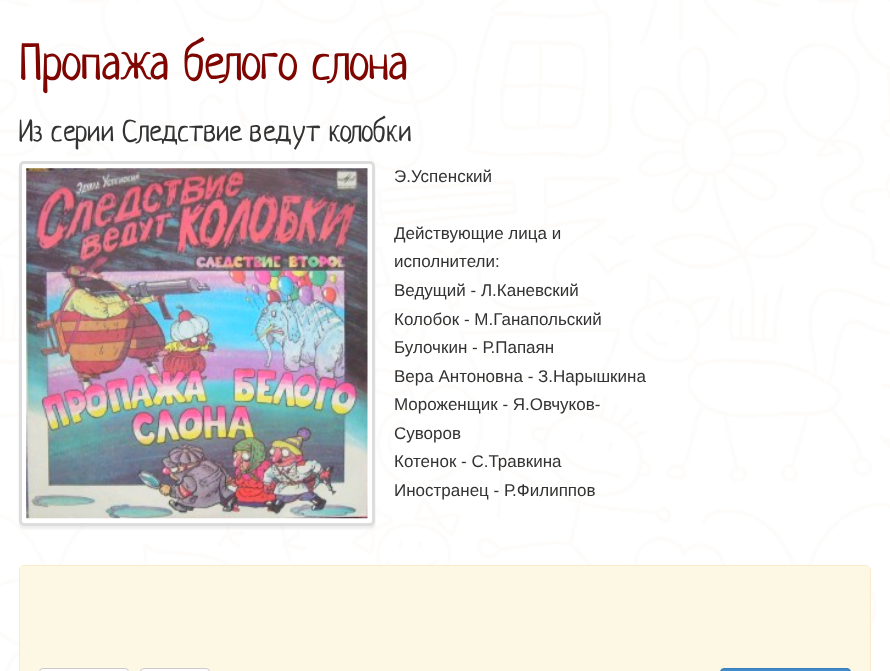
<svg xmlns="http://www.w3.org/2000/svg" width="890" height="671">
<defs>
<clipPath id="clip1"><rect x="394" y="161" width="259" height="350"/></clipPath>
</defs>
<rect width="100%" height="100%" fill="#fff"/>
<image x="0" y="0" width="890" height="671" href="media/1.png"/>
<text x="19" y="79" style="font-family:Neucha;font-size:50px;fill:#7e0500">Пропажа белого слона</text>
<text x="19" y="141" style="font-family:Neucha;font-size:30px;fill:#333">Из серии Следствие ведут колобки</text>
<rect x="19" y="164" width="356" height="365" rx="5" fill="#00000012" filter="blur(1px)"/>
<rect x="20.5" y="162.5" width="353" height="362" rx="3.5" fill="#fff" stroke="#ddd" stroke-width="3"/>
<image x="26" y="168" width="342" height="351" href="media/2.png"/>
<text x="394" y="182" style="font-family:Liberation Sans;font-size:17px;fill:#333">Э.Успенский</text>
<g clip-path="url(#clip1)">
<text x="394" y="239" style="font-family:Liberation Sans;font-size:17px;fill:#333">Действующие лица и</text>
</g>
<text x="394" y="267" style="font-family:Liberation Sans;font-size:17px;fill:#333">исполнители:</text>
<text x="394" y="296" style="font-family:Liberation Sans;font-size:17px;fill:#333">Ведущий - Л.Каневский</text>
<text x="394" y="325" style="font-family:Liberation Sans;font-size:17px;fill:#333">Колобок - М.Ганапольский</text>
<text x="394" y="353" style="font-family:Liberation Sans;font-size:17px;fill:#333">Булочкин - Р.Папаян</text>
<text x="394" y="382" style="font-family:Liberation Sans;font-size:17px;fill:#333">Вера Антоновна - З.Нарышкина</text>
<text x="394" y="410" style="font-family:Liberation Sans;font-size:17px;fill:#333">Мороженщик - Я.Овчуков-</text>
<text x="394" y="439" style="font-family:Liberation Sans;font-size:17px;fill:#333">Суворов</text>
<text x="394" y="467" style="font-family:Liberation Sans;font-size:17px;fill:#333">Котенок - С.Травкина</text>
<text x="394" y="496" style="font-family:Liberation Sans;font-size:17px;fill:#333">Иностранец - Р.Филиппов</text>
<rect x="19.5" y="565.5" width="851" height="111" rx="4.5" fill="none" stroke="#faebcc"/>
<rect x="20" y="566" width="850" height="105" fill="#fcf8e3"/>
<rect x="39.5" y="668.5" width="89" height="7" rx="3.5" fill="#fff" stroke="#ccc"/>
<rect x="140.5" y="668.5" width="69" height="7" rx="3.5" fill="#fff" stroke="#ccc"/>
<rect x="720.5" y="668.5" width="130" height="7" rx="3.5" fill="#428bca" stroke="#357ebd"/>
</svg>
